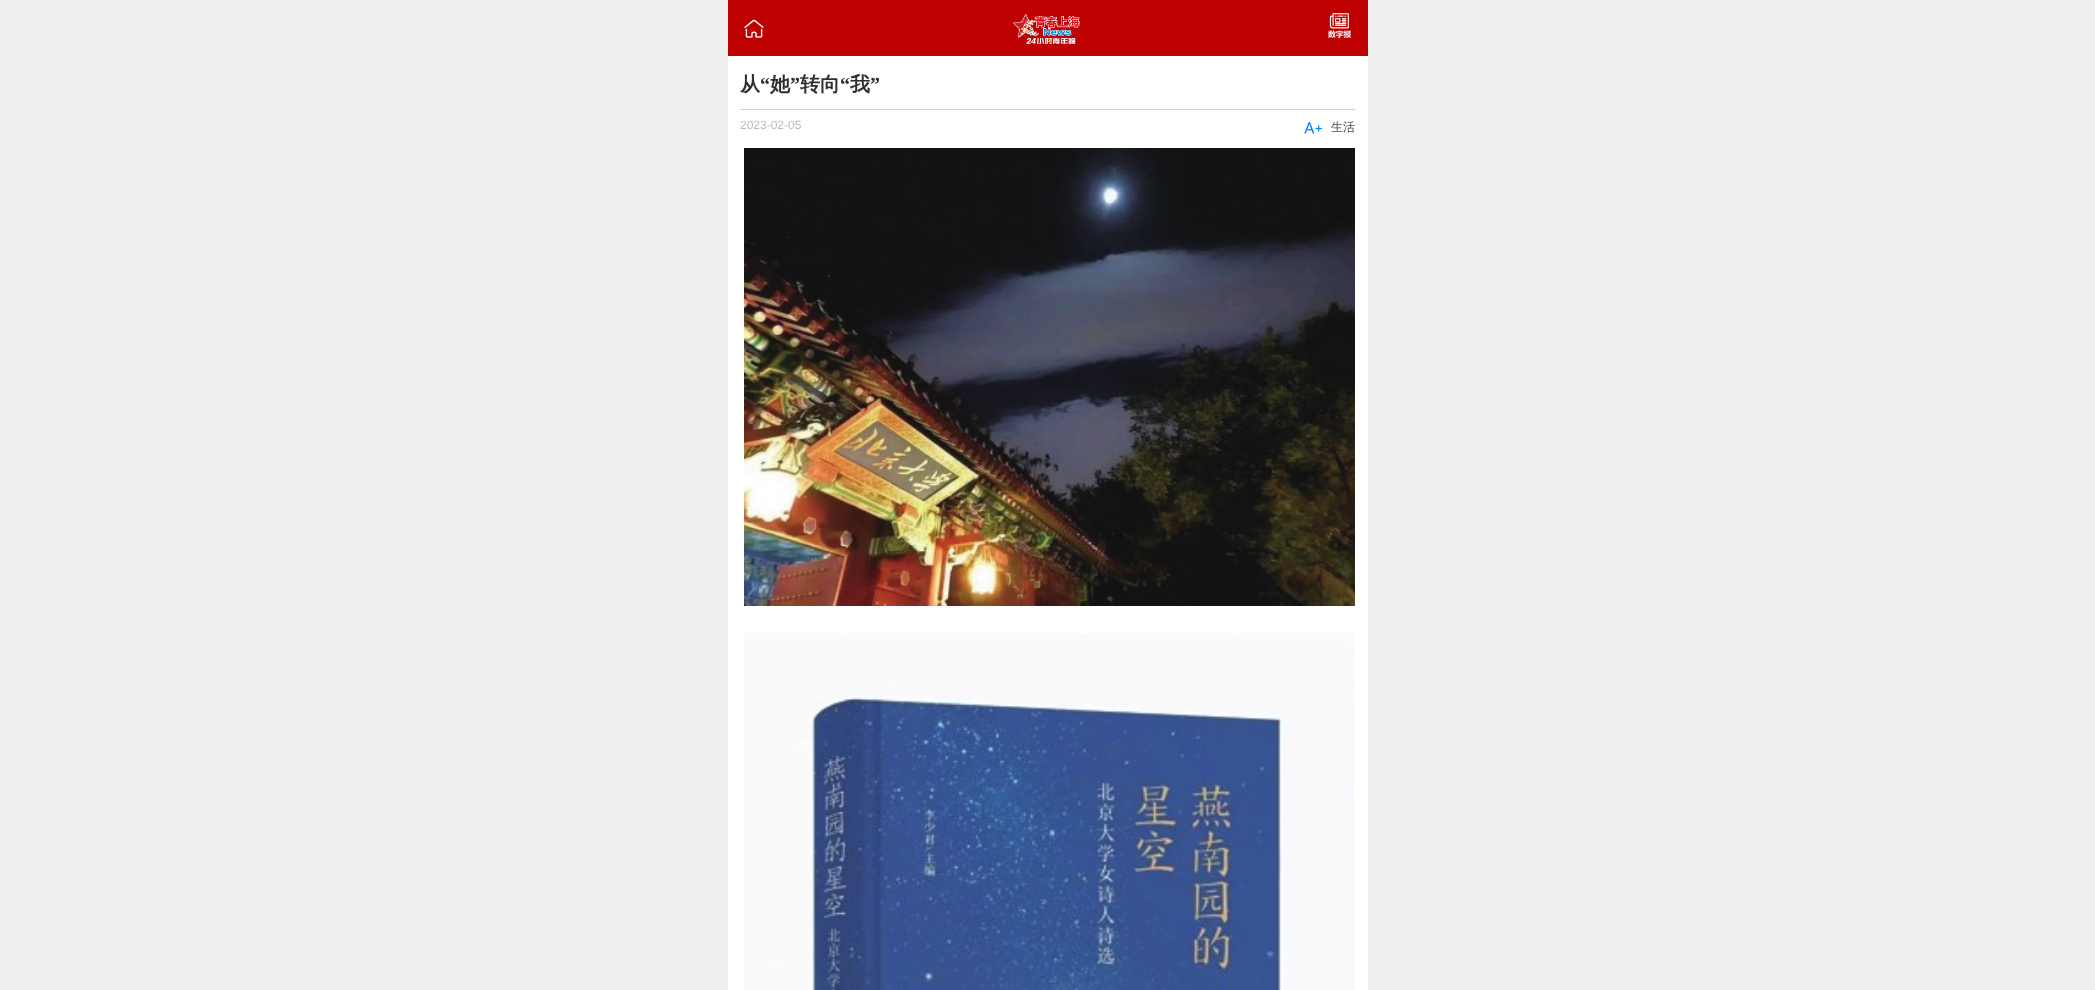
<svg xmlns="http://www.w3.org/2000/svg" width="2095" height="990">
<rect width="100%" height="100%" fill="#eee"/>
<rect x="728" y="56" width="640" height="934" fill="#fff"/>
<rect x="728" width="640" height="56" fill="#bd0000"/>
<image x="744" y="19" width="20" height="19" href="media/1.png"/>
<image x="1013" y="14" width="67" height="30" href="media/2.png"/>
<image x="1328" y="13" width="24" height="25" href="media/3.png"/>
<rect x="740" y="109" width="615" height="1" fill="#d0d0d0"/>
<text x="740" y="91" style="font-family:WenQuanYi Zen Hei;font-size:20px;font-weight:bold;fill:#2e2e2e">从</text>
<text x="760" y="91" style="font-family:Liberation Serif;font-size:20px;font-weight:bold;fill:#2e2e2e">“</text>
<text x="770" y="91" style="font-family:WenQuanYi Zen Hei;font-size:20px;font-weight:bold;fill:#2e2e2e">她</text>
<text x="790" y="91" style="font-family:Liberation Serif;font-size:20px;font-weight:bold;fill:#2e2e2e">”</text>
<text x="800" y="91" style="font-family:WenQuanYi Zen Hei;font-size:20px;font-weight:bold;fill:#2e2e2e">转向</text>
<text x="840" y="91" style="font-family:Liberation Serif;font-size:20px;font-weight:bold;fill:#2e2e2e">“</text>
<text x="850" y="91" style="font-family:WenQuanYi Zen Hei;font-size:20px;font-weight:bold;fill:#2e2e2e">我</text>
<text x="870" y="91" style="font-family:Liberation Serif;font-size:20px;font-weight:bold;fill:#2e2e2e">”</text>
<text x="740" y="129" style="font-family:Liberation Sans;font-size:12px;fill:#bbb">2023-02-05</text>
<image x="1304" y="122" width="18" height="12" href="media/4.png"/>
<text x="1331" y="131" style="font-family:WenQuanYi Zen Hei;font-size:12px;font-weight:500;fill:#4c4c4c">生活</text>
<image x="744" y="148" width="611" height="458" href="media/5.png"/>
<image x="744" y="633" width="611" height="357" href="media/6.png"/>
</svg>
